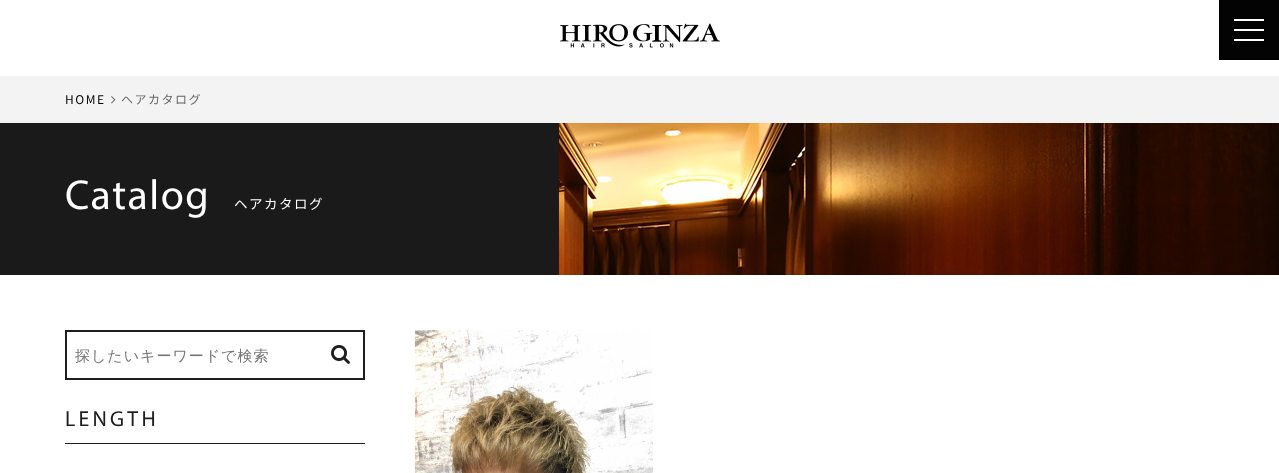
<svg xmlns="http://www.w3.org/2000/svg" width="1279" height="473">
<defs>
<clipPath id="clip1"><rect x="75" y="347" width="248" height="19"/></clipPath>
</defs>
<rect width="100%" height="100%" fill="#fff"/>
<image x="560" y="23" width="160" height="25" href="media/1.png"/>
<rect x="1219" width="60" height="60" fill="#030303"/>
<rect x="1234" y="29" width="30" height="2" fill="#fff"/>
<rect x="1234" y="19" width="30" height="2" fill="#fff"/>
<rect x="1234" y="39" width="30" height="2" fill="#fff"/>
<rect y="76" width="1279" height="47" fill="#f3f3f3"/>
<text x="65" y="104" style="font-family:Noto Sans JP;font-size:12px;letter-spacing:1.5px;fill:#030303">HOME</text>
<image x="111" y="96" width="5" height="8" href="media/2.png"/>
<text x="121" y="104" style="font-family:Noto Sans JP;font-size:12px;letter-spacing:1.5px;fill:#666">ヘアカタログ</text>
<rect y="123" width="559" height="152" fill="#1a1a1a"/>
<image x="559" y="123" width="720" height="152" href="media/3.png"/>
<text x="65" y="209" style="font-family:Myriad;font-size:42px;letter-spacing:1.5px;fill:#fff">Catalog</text>
<text x="234" y="209" style="font-family:Noto Sans JP;font-size:13.5px;letter-spacing:1.5px;fill:#fff">ヘアカタログ</text>
<rect x="66" y="331" width="298" height="48" fill="none" stroke="#1e1e1e" stroke-width="2"/>
<g clip-path="url(#clip1)">
<text x="75" y="361" style="font-family:WenQuanYi Zen Hei;font-size:15px;font-weight:500;letter-spacing:1px;fill:#757575">探したいキーワードで検索</text>
</g>
<image x="331" y="345" width="19" height="19" href="media/4.png"/>
<rect x="65" y="443" width="300" height="1" fill="#1e1e1e"/>
<text x="65" y="426" style="font-family:Myriad;font-size:21.75px;letter-spacing:3.25px;fill:#1e1e1e">LENGTH</text>
<image x="414" y="330" width="239" height="143" href="media/5.png"/>
</svg>
